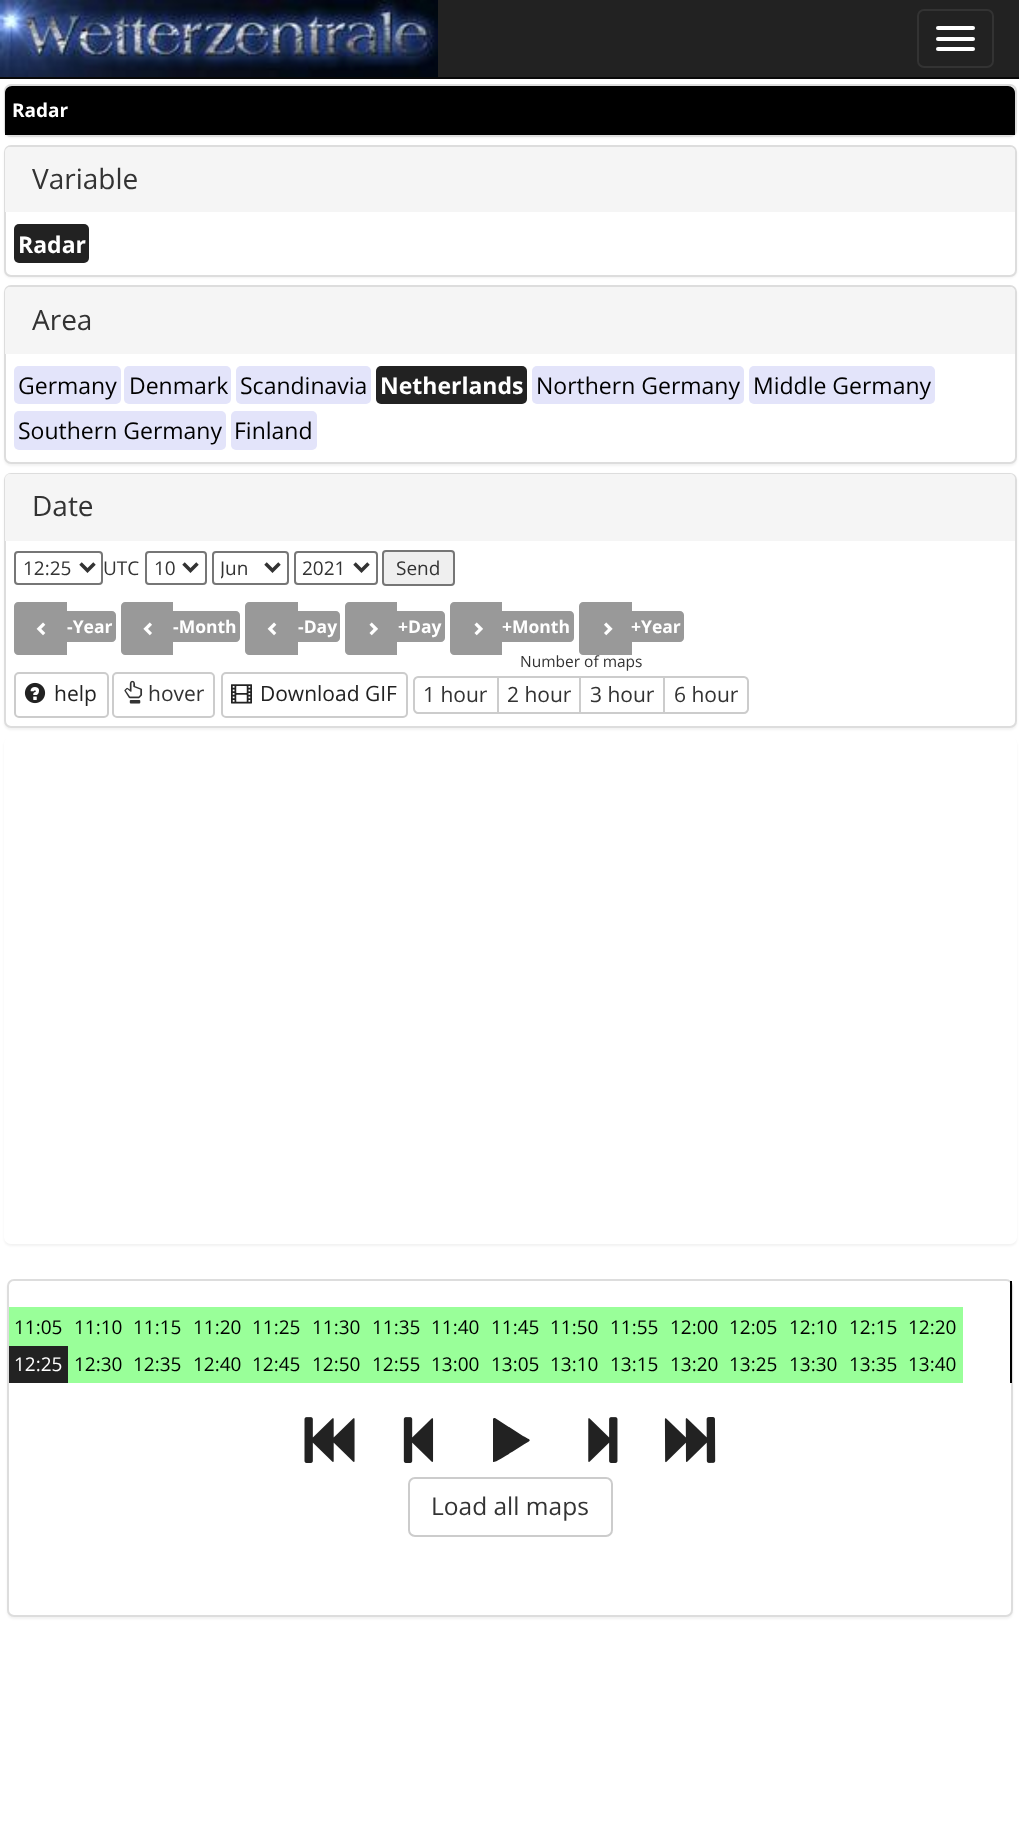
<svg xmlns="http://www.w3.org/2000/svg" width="1019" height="1824">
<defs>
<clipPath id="clip1"><rect x="221" y="553" width="38" height="30"/></clipPath>
</defs>
<rect width="100%" height="100%" fill="#fff"/>
<rect x="438" width="581" height="77" fill="#222"/>
<rect y="77" width="1019" height="2" fill="#080808"/>
<image x="0" y="0" width="438" height="77" href="media/1.png"/>
<rect x="918" y="10" width="75" height="57" rx="6" fill="none" stroke="#333" stroke-width="2"/>
<rect x="936" y="26" width="39" height="4" rx="2" fill="#fff"/>
<rect x="936" y="37" width="39" height="4" rx="2" fill="#fff"/>
<rect x="936" y="47" width="39" height="4" rx="2" fill="#fff"/>
<rect x="4" y="86" width="1013" height="52" rx="7" fill="#0000000d" filter="blur(1px)"/>
<rect x="5" y="85" width="1011" height="51" rx="6" fill="#fff" stroke="#ddd" stroke-width="2"/>
<path d="M12 86h996c4 0 7 3 7 7v42h-1010v-42c0-4 3-7 7-7z" fill="#000"/>
<text x="12" y="117" style="font-family:Open Sans;font-size:19px;font-weight:bold;fill:#fff">Radar</text>
<rect x="4" y="147" width="1013" height="131" rx="7" fill="#0000000d" filter="blur(1px)"/>
<rect x="5" y="146" width="1011" height="130" rx="6" fill="#fff" stroke="#ddd" stroke-width="2"/>
<path d="M10 147h1000c3 0 5 2 5 5v60h-1010v-60c0-3 2-5 5-5z" fill="#f5f5f5"/>
<text x="32" y="189" style="font-family:Open Sans;font-size:28px;fill:#333">Variable</text>
<rect x="14" y="224" width="75" height="39" rx="5" fill="#222"/>
<text x="18" y="253" style="font-family:Open Sans;font-size:23px;font-weight:bold;fill:#fff">Radar</text>
<rect x="4" y="287" width="1013" height="179" rx="7" fill="#0000000d" filter="blur(1px)"/>
<rect x="5" y="286" width="1011" height="177" rx="6" fill="#fff" stroke="#ddd" stroke-width="2"/>
<path d="M10 287h1000c3 0 5 2 5 5v62h-1010v-62c0-3 2-5 5-5z" fill="#f5f5f5"/>
<text x="32" y="330" style="font-family:Open Sans;font-size:28px;fill:#333">Area</text>
<rect x="14" y="366" width="107" height="38" rx="5" fill="#e3e4fa"/>
<text x="18" y="394" style="font-family:Open Sans;font-size:23px;fill:#000">Germany</text>
<rect x="124" y="366" width="107" height="38" rx="5" fill="#e3e4fa"/>
<text x="129" y="394" style="font-family:Open Sans;font-size:23px;fill:#000">Denmark</text>
<rect x="236" y="366" width="135" height="38" rx="5" fill="#e3e4fa"/>
<text x="240" y="394" style="font-family:Open Sans;font-size:23px;fill:#000">Scandinavia</text>
<rect x="376" y="366" width="151" height="38" rx="5" fill="#222"/>
<text x="380" y="394" style="font-family:Open Sans;font-size:23px;font-weight:bold;fill:#fff">Netherlands</text>
<rect x="532" y="366" width="212" height="38" rx="5" fill="#e3e4fa"/>
<text x="536" y="394" style="font-family:Open Sans;font-size:23px;fill:#000">Northern Germany</text>
<rect x="749" y="366" width="186" height="38" rx="5" fill="#e3e4fa"/>
<text x="753" y="394" style="font-family:Open Sans;font-size:23px;fill:#000">Middle Germany</text>
<rect x="14" y="411" width="212" height="39" rx="5" fill="#e3e4fa"/>
<text x="18" y="439" style="font-family:Open Sans;font-size:23px;fill:#000">Southern Germany</text>
<rect x="231" y="411" width="86" height="39" rx="5" fill="#e3e4fa"/>
<text x="234" y="439" style="font-family:Open Sans;font-size:23px;fill:#000">Finland</text>
<rect x="4" y="474" width="1013" height="256" rx="7" fill="#0000000d" filter="blur(1px)"/>
<rect x="5" y="474" width="1011" height="253" rx="6" fill="#fff" stroke="#ddd" stroke-width="2"/>
<path d="M10 474h1000c3 0 5 2 5 5v62h-1010v-62c0-3 2-5 5-5z" fill="#f5f5f5"/>
<text x="32" y="516" style="font-family:Open Sans;font-size:28px;fill:#333">Date</text>
<rect x="15" y="552" width="87" height="32" rx="3" fill="none" stroke="#767676" stroke-width="2"/>
<path d="M80.5 563.5l7 7l7-7" fill="none" stroke="#333" stroke-width="3.5"/>
<text x="23" y="575" style="font-family:Open Sans;font-size:19px;fill:#333">12:25</text>
<text x="103" y="575" style="font-family:Open Sans;font-size:19px;fill:#333">UTC</text>
<rect x="146" y="552" width="60" height="32" rx="3" fill="none" stroke="#767676" stroke-width="2"/>
<path d="M183.5 563.5l7 7l7-7" fill="none" stroke="#333" stroke-width="3.5"/>
<text x="154" y="575" style="font-family:Open Sans;font-size:19px;fill:#333">10</text>
<rect x="213" y="552" width="75" height="32" rx="3" fill="none" stroke="#767676" stroke-width="2"/>
<path d="M265.5 563.5l7 7l7-7" fill="none" stroke="#333" stroke-width="3.5"/>
<g clip-path="url(#clip1)">
<text x="220" y="575" style="font-family:Open Sans;font-size:19px;fill:#333">Jun</text>
</g>
<rect x="295" y="552" width="82" height="32" rx="3" fill="none" stroke="#767676" stroke-width="2"/>
<path d="M354.5 563.5l7 7l7-7" fill="none" stroke="#333" stroke-width="3.5"/>
<text x="302" y="575" style="font-family:Open Sans;font-size:19px;fill:#333">2021</text>
<rect x="383" y="551" width="71" height="34" rx="3" fill="#efefef" stroke="#767676" stroke-width="2"/>
<text x="396" y="575" style="font-family:Open Sans;font-size:19px;fill:#333">Send</text>
<path d="M18 602h49v53h-49c-2 0-4-2-4-4v-45c0-2 2-4 4-4z" fill="#999"/>
<path d="M67 611h45c2 0 4 2 4 4v23c0 2-2 4-4 4h-45z" fill="#999"/>
<image x="36" y="622" width="10" height="14" href="media/2.png"/>
<text x="67" y="633" style="font-family:Open Sans;font-size:17.5px;font-weight:bold;fill:#fff">-Year</text>
<path d="M125 602h48v53h-48c-2 0-4-2-4-4v-45c0-2 2-4 4-4z" fill="#999"/>
<path d="M173 611h63c2 0 4 2 4 4v23c0 2-2 4-4 4h-63z" fill="#999"/>
<image x="143" y="622" width="9" height="14" href="media/3.png"/>
<text x="173" y="633" style="font-family:Open Sans;font-size:17.5px;font-weight:bold;fill:#fff">-Month</text>
<path d="M249 602h49v53h-49c-2 0-4-2-4-4v-45c0-2 2-4 4-4z" fill="#999"/>
<path d="M298 611h38c2 0 4 2 4 4v23c0 2-2 4-4 4h-38z" fill="#999"/>
<image x="267" y="622" width="10" height="14" href="media/2.png"/>
<text x="298" y="633" style="font-family:Open Sans;font-size:17.5px;font-weight:bold;fill:#fff">-Day</text>
<path d="M349 602h48v53h-48c-2 0-4-2-4-4v-45c0-2 2-4 4-4z" fill="#999"/>
<path d="M397 611h44c2 0 4 2 4 4v23c0 2-2 4-4 4h-44z" fill="#999"/>
<image x="369" y="622" width="9" height="14" href="media/4.png"/>
<text x="398" y="633" style="font-family:Open Sans;font-size:17.5px;font-weight:bold;fill:#fff">+Day</text>
<path d="M454 602h48v53h-48c-2 0-4-2-4-4v-45c0-2 2-4 4-4z" fill="#999"/>
<path d="M502 611h68c2 0 4 2 4 4v23c0 2-2 4-4 4h-68z" fill="#999"/>
<image x="474" y="622" width="9" height="14" href="media/4.png"/>
<text x="502" y="633" style="font-family:Open Sans;font-size:17.5px;font-weight:bold;fill:#fff">+Month</text>
<path d="M583 602h49v53h-49c-2 0-4-2-4-4v-45c0-2 2-4 4-4z" fill="#999"/>
<path d="M632 611h48c2 0 4 2 4 4v23c0 2-2 4-4 4h-48z" fill="#999"/>
<image x="604" y="622" width="9" height="14" href="media/5.png"/>
<text x="631" y="633" style="font-family:Open Sans;font-size:17.5px;font-weight:bold;fill:#fff">+Year</text>
<rect x="15" y="673" width="93" height="44" rx="4" fill="none" stroke="#ccc" stroke-width="2"/>
<image x="24" y="682" width="22" height="22" href="media/6.png"/>
<text x="54" y="701" style="font-family:Open Sans;font-size:21px;fill:#222">help</text>
<rect x="113" y="673" width="101" height="44" rx="4" fill="none" stroke="#ccc" stroke-width="2"/>
<image x="124" y="680" width="19" height="24" href="media/7.png"/>
<text x="148" y="701" style="font-family:Open Sans;font-size:21px;fill:#333">hover</text>
<rect x="222" y="673" width="185" height="44" rx="4" fill="none" stroke="#ccc" stroke-width="2"/>
<image x="231" y="684" width="21" height="20" href="media/8.png"/>
<text x="260" y="701" style="font-family:Open Sans;font-size:21px;fill:#222">Download GIF</text>
<text x="520" y="667" style="font-family:Open Sans;font-size:15.5px;fill:#333">Number of maps</text>
<path d="M418 677h80v36h-80c-2 0-4-2-4-4v-28c0-2 2-4 4-4z" fill="none" stroke="#ccc" stroke-width="2"/>
<text x="423" y="702" style="font-family:Open Sans;font-size:21px;fill:#333">1 hour</text>
<rect x="498" y="677" width="82" height="36" fill="none" stroke="#ccc" stroke-width="2"/>
<text x="507" y="702" style="font-family:Open Sans;font-size:21px;fill:#333">2 hour</text>
<rect x="580" y="677" width="84" height="36" fill="none" stroke="#ccc" stroke-width="2"/>
<text x="590" y="702" style="font-family:Open Sans;font-size:21px;fill:#333">3 hour</text>
<path d="M664 677h80c2 0 4 2 4 4v28c0 2-2 4-4 4h-80z" fill="#fff" stroke="#ccc" stroke-width="2"/>
<text x="674" y="702" style="font-family:Open Sans;font-size:21px;fill:#333">6 hour</text>
<rect x="4" y="739" width="1013" height="507" rx="7" fill="#0000000d" filter="blur(1px)"/>
<rect x="4" y="737" width="1013" height="507" rx="7" fill="#fff"/>
<rect x="7" y="1281" width="1006" height="338" rx="7" fill="#0000000d" filter="blur(1px)"/>
<rect x="8" y="1280" width="1004" height="336" rx="6" fill="#fff" stroke="#ddd" stroke-width="2"/>
<rect x="1010" y="1281" width="2" height="102" fill="#000"/>
<rect x="9" y="1307" width="954" height="39" fill="#9f9"/>
<text x="14" y="1334" style="font-family:Open Sans;font-size:19px;fill:#000">11:05</text>
<text x="74" y="1334" style="font-family:Open Sans;font-size:19px;fill:#000">11:10</text>
<text x="133" y="1334" style="font-family:Open Sans;font-size:19px;fill:#000">11:15</text>
<text x="193" y="1334" style="font-family:Open Sans;font-size:19px;fill:#000">11:20</text>
<text x="252" y="1334" style="font-family:Open Sans;font-size:19px;fill:#000">11:25</text>
<text x="312" y="1334" style="font-family:Open Sans;font-size:19px;fill:#000">11:30</text>
<text x="372" y="1334" style="font-family:Open Sans;font-size:19px;fill:#000">11:35</text>
<text x="431" y="1334" style="font-family:Open Sans;font-size:19px;fill:#000">11:40</text>
<text x="491" y="1334" style="font-family:Open Sans;font-size:19px;fill:#000">11:45</text>
<text x="550" y="1334" style="font-family:Open Sans;font-size:19px;fill:#000">11:50</text>
<text x="610" y="1334" style="font-family:Open Sans;font-size:19px;fill:#000">11:55</text>
<text x="670" y="1334" style="font-family:Open Sans;font-size:19px;fill:#000">12:00</text>
<text x="729" y="1334" style="font-family:Open Sans;font-size:19px;fill:#000">12:05</text>
<text x="789" y="1334" style="font-family:Open Sans;font-size:19px;fill:#000">12:10</text>
<text x="849" y="1334" style="font-family:Open Sans;font-size:19px;fill:#000">12:15</text>
<text x="908" y="1334" style="font-family:Open Sans;font-size:19px;fill:#000">12:20</text>
<rect x="9" y="1346" width="59" height="37" fill="#222"/>
<text x="14" y="1371" style="font-family:Open Sans;font-size:19px;fill:#fff">12:25</text>
<rect x="68" y="1346" width="895" height="37" fill="#9f9"/>
<text x="74" y="1371" style="font-family:Open Sans;font-size:19px;fill:#000">12:30</text>
<text x="133" y="1371" style="font-family:Open Sans;font-size:19px;fill:#000">12:35</text>
<text x="193" y="1371" style="font-family:Open Sans;font-size:19px;fill:#000">12:40</text>
<text x="252" y="1371" style="font-family:Open Sans;font-size:19px;fill:#000">12:45</text>
<text x="312" y="1371" style="font-family:Open Sans;font-size:19px;fill:#000">12:50</text>
<text x="372" y="1371" style="font-family:Open Sans;font-size:19px;fill:#000">12:55</text>
<text x="431" y="1371" style="font-family:Open Sans;font-size:19px;fill:#000">13:00</text>
<text x="491" y="1371" style="font-family:Open Sans;font-size:19px;fill:#000">13:05</text>
<text x="550" y="1371" style="font-family:Open Sans;font-size:19px;fill:#000">13:10</text>
<text x="610" y="1371" style="font-family:Open Sans;font-size:19px;fill:#000">13:15</text>
<text x="670" y="1371" style="font-family:Open Sans;font-size:19px;fill:#000">13:20</text>
<text x="729" y="1371" style="font-family:Open Sans;font-size:19px;fill:#000">13:25</text>
<text x="789" y="1371" style="font-family:Open Sans;font-size:19px;fill:#000">13:30</text>
<text x="849" y="1371" style="font-family:Open Sans;font-size:19px;fill:#000">13:35</text>
<text x="908" y="1371" style="font-family:Open Sans;font-size:19px;fill:#000">13:40</text>
<image x="304" y="1417" width="51" height="46" href="media/9.png"/>
<image x="403" y="1417" width="31" height="46" href="media/10.png"/>
<path d="M495 1418l28 18c9 5 9 3 0 9l-11 7c-2 1-17 11-19 10c0 0 0-40 0-43c0-1 1-1 2-1z" fill="#222"/>
<image x="588" y="1417" width="30" height="46" href="media/11.png"/>
<image x="664" y="1417" width="52" height="46" href="media/12.png"/>
<rect x="409" y="1478" width="203" height="58" rx="6" fill="none" stroke="#ccc" stroke-width="2"/>
<text x="431" y="1515" style="font-family:Open Sans;font-size:24.5px;fill:#333">Load all maps</text>
</svg>
